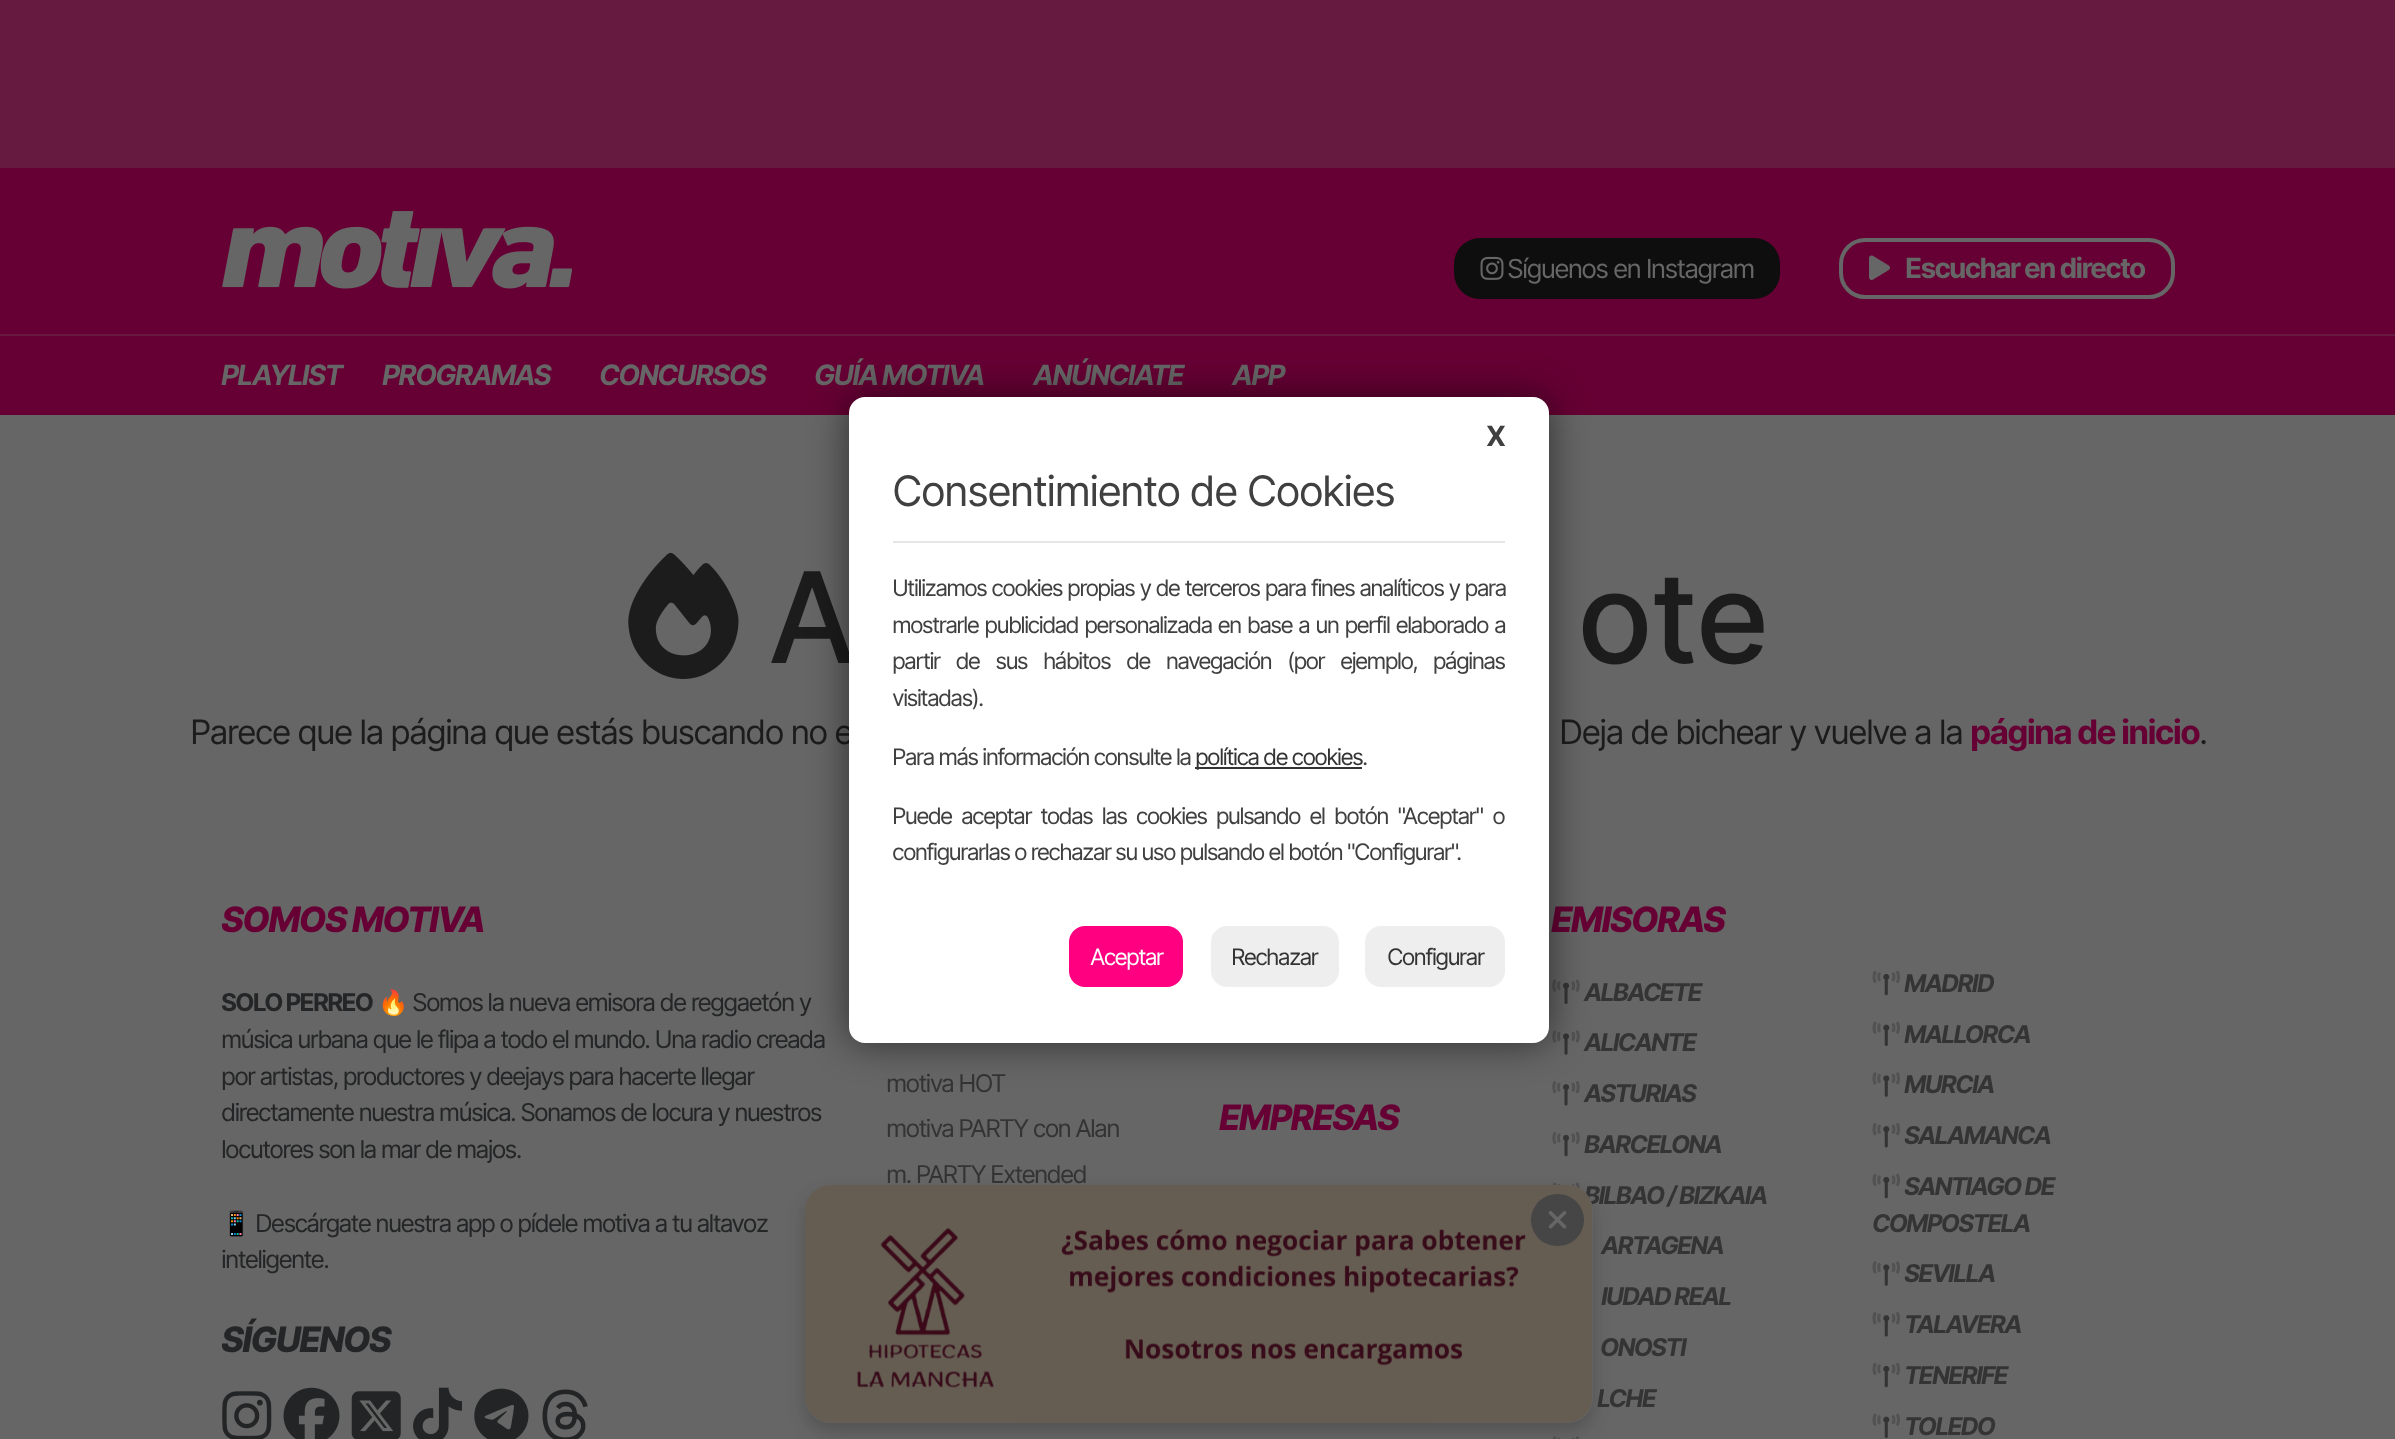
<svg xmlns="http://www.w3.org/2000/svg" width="2395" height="1439">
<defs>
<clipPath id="clip1"><rect x="893" y="571" width="612" height="416"/></clipPath>
</defs>
<rect width="100%" height="100%" fill="#666"/>
<rect width="2395" height="168" fill="#661a40"/>
<rect y="168" width="2395" height="247" fill="#660034"/>
<image x="222" y="211" width="350" height="78" href="media/1.png"/>
<rect x="1454" y="238" width="326" height="61" rx="26" fill="#0e0e0e"/>
<image x="1480" y="256" width="24" height="24" href="media/2.png"/>
<text x="1507" y="278" style="font-family:Inter;font-size:26.25px;letter-spacing:-1.75px;fill:#666">Síguenos en Instagram</text>
<rect x="1841" y="240" width="332" height="57" rx="24" fill="none" stroke="#666" stroke-width="4"/>
<image x="1869" y="255" width="21" height="25" href="media/3.png"/>
<text x="1905" y="278" style="font-family:Inter;font-size:28px;font-weight:bold;letter-spacing:-1.75px;fill:#666">Escuchar en directo</text>
<rect y="334" width="2395" height="2" fill="#661a40"/>
<text x="221" y="385" style="font-family:Inter;font-size:28px;font-weight:bold;font-style:italic;letter-spacing:-1.75px;fill:#666">PLAYLIST</text>
<text x="382" y="385" style="font-family:Inter;font-size:28px;font-weight:bold;font-style:italic;letter-spacing:-1.75px;fill:#666">PROGRAMAS</text>
<text x="599" y="385" style="font-family:Inter;font-size:28px;font-weight:bold;font-style:italic;letter-spacing:-1.75px;fill:#666">CONCURSOS</text>
<text x="814" y="385" style="font-family:Inter;font-size:28px;font-weight:bold;font-style:italic;letter-spacing:-1.75px;fill:#666">GUÍA MOTIVA</text>
<text x="1033" y="385" style="font-family:Inter;font-size:28px;font-weight:bold;font-style:italic;letter-spacing:-1.75px;fill:#666">ANÚNCIATE</text>
<text x="1232" y="385" style="font-family:Inter;font-size:28px;font-weight:bold;font-style:italic;letter-spacing:-1.75px;fill:#666">APP</text>
<image x="628" y="552" width="111" height="127" href="media/4.png"/>
<text x="768" y="663" style="font-family:Inter;font-size:126px;font-weight:500;letter-spacing:-1.75px;fill:#1c1c1c">A</text>
<text x="1577" y="663" style="font-family:Inter;font-size:126px;font-weight:500;letter-spacing:-1.75px;fill:#1c1c1c">ote</text>
<text x="190" y="744" style="font-family:Inter;font-size:33.6px;letter-spacing:-1.75px;fill:#1c1c1c">Parece que la página que estás buscando no e</text>
<text x="1559" y="744" style="font-family:Inter;font-size:33.6px;letter-spacing:-1.75px;fill:#1c1c1c">Deja de bichear y vuelve a la</text>
<text x="1970" y="744" style="font-family:Inter;font-size:33.6px;font-weight:bold;letter-spacing:-1.75px;fill:#660034">página de inicio</text>
<text x="2199" y="744" style="font-family:Inter;font-size:33.6px;letter-spacing:-1.75px;fill:#1c1c1c">.</text>
<text x="221" y="932" style="font-family:Inter;font-size:35px;font-weight:800;font-style:italic;letter-spacing:-1.75px;fill:#660034">SOMOS MOTIVA</text>
<text x="221" y="1011" style="font-family:Inter;font-size:24.5px;font-weight:bold;letter-spacing:-1.75px;fill:#242526">SOLO PERREO</text>
<text x="378" y="1011" style="font-family:Noto Color Emoji;font-size:24.5px;letter-spacing:-1.75px;fill:#242526">🔥</text>
<text x="412" y="1011" style="font-family:Inter;font-size:24.5px;letter-spacing:-1.75px;fill:#242526">Somos la nueva emisora de reggaetón y</text>
<text x="221" y="1048" style="font-family:Inter;font-size:24.5px;letter-spacing:-1.75px;fill:#242526">música urbana que le flipa a todo el mundo. Una radio creada</text>
<text x="221" y="1085" style="font-family:Inter;font-size:24.5px;letter-spacing:-1.75px;fill:#242526">por artistas, productores y deejays para hacerte llegar</text>
<text x="221" y="1121" style="font-family:Inter;font-size:24.5px;letter-spacing:-1.75px;fill:#242526">directamente nuestra música. Sonamos de locura y nuestros</text>
<text x="221" y="1158" style="font-family:Inter;font-size:24.5px;letter-spacing:-1.75px;fill:#242526">locutores son la mar de majos.</text>
<text x="221" y="1232" style="font-family:Noto Color Emoji;font-size:24.5px;letter-spacing:-1.75px;fill:#242526">📱</text>
<text x="255" y="1232" style="font-family:Inter;font-size:24.5px;letter-spacing:-1.75px;fill:#242526">Descárgate nuestra app o pídele motiva a tu altavoz</text>
<text x="221" y="1268" style="font-family:Inter;font-size:24.5px;letter-spacing:-1.75px;fill:#242526">inteligente.</text>
<text x="221" y="1352" style="font-family:Inter;font-size:35px;font-weight:800;font-style:italic;letter-spacing:-1.75px;fill:#242526">SÍGUENOS</text>
<image x="222" y="1391" width="50" height="48" href="media/5.png"/>
<image x="283" y="1387" width="57" height="52" href="media/6.png"/>
<image x="351" y="1391" width="50" height="48" href="media/7.png"/>
<image x="413" y="1387" width="49" height="52" href="media/8.png"/>
<image x="474" y="1388" width="55" height="51" href="media/9.png"/>
<image x="542" y="1389" width="46" height="50" href="media/10.png"/>
<text x="886" y="1092" style="font-family:Inter;font-size:24.5px;letter-spacing:-1.75px;fill:#343434">motiva HOT</text>
<text x="886" y="1137" style="font-family:Inter;font-size:24.5px;letter-spacing:-1.75px;fill:#343434">motiva PARTY con Alan</text>
<text x="886" y="1183" style="font-family:Inter;font-size:24.5px;letter-spacing:-1.75px;fill:#343434">m. PARTY Extended</text>
<text x="1219" y="1130" style="font-family:Inter;font-size:35px;font-weight:800;font-style:italic;letter-spacing:-1.75px;fill:#660034">EMPRESAS</text>
<text x="1551" y="932" style="font-family:Inter;font-size:35px;font-weight:800;font-style:italic;letter-spacing:-1.75px;fill:#660034">EMISORAS</text>
<image x="1563" y="982" width="7" height="22" href="media/12.png"/>
<image x="1552" y="979" width="28" height="13" href="media/11.png"/>
<text x="1584" y="1001" style="font-family:Inter;font-size:24.5px;font-weight:bold;font-style:italic;letter-spacing:-1.75px;fill:#343434">ALBACETE</text>
<image x="1883" y="973" width="7" height="23" href="media/14.png"/>
<image x="1872" y="970" width="28" height="13" href="media/13.png"/>
<text x="1904" y="992" style="font-family:Inter;font-size:24.5px;font-weight:bold;font-style:italic;letter-spacing:-1.75px;fill:#343434">MADRID</text>
<image x="1563" y="1033" width="7" height="22" href="media/16.png"/>
<image x="1552" y="1030" width="28" height="13" href="media/15.png"/>
<text x="1584" y="1051" style="font-family:Inter;font-size:24.5px;font-weight:bold;font-style:italic;letter-spacing:-1.75px;fill:#343434">ALICANTE</text>
<image x="1883" y="1024" width="7" height="22" href="media/18.png"/>
<image x="1872" y="1021" width="28" height="13" href="media/17.png"/>
<text x="1904" y="1043" style="font-family:Inter;font-size:24.5px;font-weight:bold;font-style:italic;letter-spacing:-1.75px;fill:#343434">MALLORCA</text>
<image x="1563" y="1084" width="7" height="22" href="media/20.png"/>
<image x="1552" y="1081" width="28" height="13" href="media/19.png"/>
<text x="1584" y="1102" style="font-family:Inter;font-size:24.5px;font-weight:bold;font-style:italic;letter-spacing:-1.75px;fill:#343434">ASTURIAS</text>
<image x="1883" y="1075" width="7" height="22" href="media/22.png"/>
<image x="1872" y="1072" width="28" height="13" href="media/21.png"/>
<text x="1904" y="1093" style="font-family:Inter;font-size:24.5px;font-weight:bold;font-style:italic;letter-spacing:-1.75px;fill:#343434">MURCIA</text>
<image x="1563" y="1134" width="6" height="23" href="media/24.png"/>
<image x="1552" y="1131" width="28" height="13" href="media/23.png"/>
<text x="1584" y="1153" style="font-family:Inter;font-size:24.5px;font-weight:bold;font-style:italic;letter-spacing:-1.75px;fill:#343434">BARCELONA</text>
<image x="1883" y="1126" width="7" height="22" href="media/26.png"/>
<image x="1872" y="1123" width="28" height="13" href="media/25.png"/>
<text x="1904" y="1144" style="font-family:Inter;font-size:24.5px;font-weight:bold;font-style:italic;letter-spacing:-1.75px;fill:#343434">SALAMANCA</text>
<image x="1552" y="1182" width="28" height="7" href="media/27.png"/>
<text x="1584" y="1204" style="font-family:Inter;font-size:24.5px;font-weight:bold;font-style:italic;letter-spacing:-1.75px;fill:#343434">BILBAO / BIZKAIA</text>
<image x="1883" y="1176" width="7" height="23" href="media/14.png"/>
<image x="1872" y="1173" width="28" height="13" href="media/13.png"/>
<text x="1904" y="1195" style="font-family:Inter;font-size:24.5px;font-weight:bold;font-style:italic;letter-spacing:-1.75px;fill:#343434">SANTIAGO DE</text>
<text x="1872" y="1232" style="font-family:Inter;font-size:24.5px;font-weight:bold;font-style:italic;letter-spacing:-1.75px;fill:#343434">COMPOSTELA</text>
<text x="1601" y="1254" style="font-family:Inter;font-size:24.5px;font-weight:bold;font-style:italic;letter-spacing:-1.75px;fill:#343434">ARTAGENA</text>
<image x="1883" y="1264" width="7" height="22" href="media/22.png"/>
<image x="1872" y="1261" width="28" height="13" href="media/21.png"/>
<text x="1904" y="1282" style="font-family:Inter;font-size:24.5px;font-weight:bold;font-style:italic;letter-spacing:-1.75px;fill:#343434">SEVILLA</text>
<text x="1601" y="1305" style="font-family:Inter;font-size:24.5px;font-weight:bold;font-style:italic;letter-spacing:-1.75px;fill:#343434">IUDAD REAL</text>
<image x="1883" y="1315" width="7" height="22" href="media/26.png"/>
<image x="1872" y="1312" width="28" height="13" href="media/25.png"/>
<text x="1904" y="1333" style="font-family:Inter;font-size:24.5px;font-weight:bold;font-style:italic;letter-spacing:-1.75px;fill:#343434">TALAVERA</text>
<text x="1600" y="1356" style="font-family:Inter;font-size:24.5px;font-weight:bold;font-style:italic;letter-spacing:-1.75px;fill:#343434">ONOSTI</text>
<image x="1883" y="1365" width="7" height="23" href="media/14.png"/>
<image x="1872" y="1362" width="28" height="13" href="media/13.png"/>
<text x="1904" y="1384" style="font-family:Inter;font-size:24.5px;font-weight:bold;font-style:italic;letter-spacing:-1.75px;fill:#343434">TENERIFE</text>
<text x="1597" y="1407" style="font-family:Inter;font-size:24.5px;font-weight:bold;font-style:italic;letter-spacing:-1.75px;fill:#343434">LCHE</text>
<image x="1883" y="1416" width="7" height="22" href="media/18.png"/>
<image x="1872" y="1413" width="28" height="13" href="media/17.png"/>
<text x="1904" y="1435" style="font-family:Inter;font-size:24.5px;font-weight:bold;font-style:italic;letter-spacing:-1.75px;fill:#343434">TOLEDO</text>
<image x="1552" y="1436" width="28" height="3" href="media/28.png"/>
<rect x="849" y="397" width="700" height="646" rx="16" fill="#0000008a" filter="blur(19px)"/>
<rect x="849" y="397" width="700" height="646" rx="16" fill="#fff"/>
<text x="1486" y="446" style="font-family:Inter;font-size:28px;font-weight:bold;letter-spacing:-1.75px;fill:#404040">X</text>
<rect x="893" y="541" width="612" height="2" fill="#e6e6e6"/>
<text x="892" y="506" style="font-family:Inter;font-size:42px;letter-spacing:-1.75px;fill:#404040">Consentimiento de Cookies</text>
<text x="892" y="596" word-spacing="0.5" style="font-family:Inter;font-size:22.75px;letter-spacing:-1.75px;fill:#404040">Utilizamos cookies propias y de terceros para fines analíticos y para</text>
<text x="892" y="633" word-spacing="1.5" style="font-family:Inter;font-size:22.75px;letter-spacing:-1.75px;fill:#404040">mostrarle publicidad personalizada en base a un perfil elaborado a</text>
<text x="892" y="669" word-spacing="11.25" style="font-family:Inter;font-size:22.75px;letter-spacing:-1.75px;fill:#404040">partir de sus hábitos de navegación (por ejemplo, páginas</text>
<text x="892" y="706" style="font-family:Inter;font-size:22.75px;letter-spacing:-1.75px;fill:#404040">visitadas).</text>
<text x="892" y="765" style="font-family:Inter;font-size:22.75px;letter-spacing:-1.75px;fill:#404040">Para más información consulte la</text>
<rect x="1195" y="767" width="167" height="2" fill="#333"/>
<text x="1195" y="765" style="font-family:Inter;font-size:22.75px;letter-spacing:-1.75px;fill:#343434">política de cookies</text>
<text x="1362" y="765" style="font-family:Inter;font-size:22.75px;letter-spacing:-1.75px;fill:#404040">.</text>
<text x="892" y="824" word-spacing="4.75" style="font-family:Inter;font-size:22.75px;letter-spacing:-1.75px;fill:#404040">Puede aceptar todas las cookies pulsando el botón "Aceptar" o</text>
<g clip-path="url(#clip1)">
<text x="892" y="860" style="font-family:Inter;font-size:22.75px;letter-spacing:-1.75px;fill:#404040">configurarlas o rechazar su uso pulsando el botón "Configurar".</text>
</g>
<rect x="1069" y="926" width="114" height="61" rx="16" fill="#ff0081"/>
<text x="1090" y="965" style="font-family:Inter;font-size:22.75px;letter-spacing:-1.75px;fill:#fff">Aceptar</text>
<rect x="1211" y="926" width="128" height="61" rx="16" fill="#eee"/>
<text x="1231" y="965" style="font-family:Inter;font-size:22.75px;letter-spacing:-1.75px;fill:#343434">Rechazar</text>
<rect x="1365" y="926" width="140" height="61" rx="16" fill="#eee"/>
<text x="1387" y="965" style="font-family:Inter;font-size:22.75px;letter-spacing:-1.75px;fill:#343434">Configurar</text>
<rect x="805" y="1194" width="788" height="238" rx="26" fill="#1a1a1a40" filter="blur(9px)"/>
<rect x="805" y="1185" width="788" height="238" rx="26" fill="#666"/>
<image x="805" y="1185" width="788" height="238" href="media/29.png"/>
<rect x="1531" y="1194" width="53" height="52" rx="26" fill="#464646"/>
<image x="1548" y="1211" width="19" height="18" href="media/30.png"/>
</svg>
